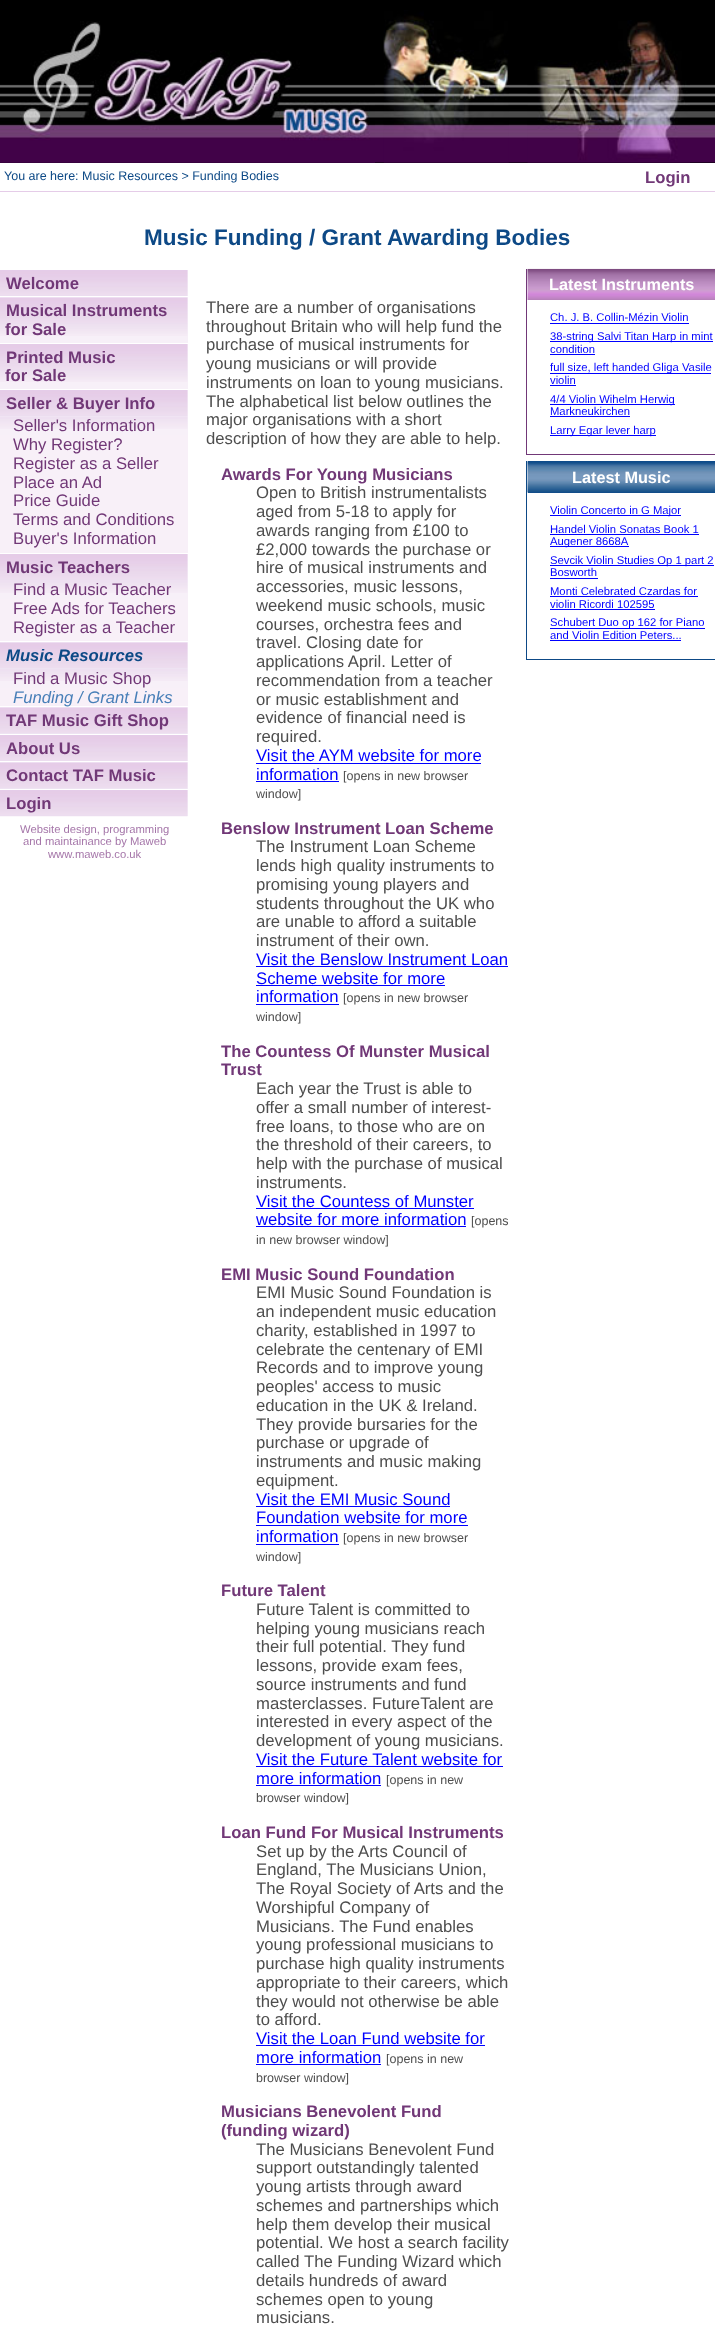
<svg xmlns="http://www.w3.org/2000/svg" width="715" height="2331">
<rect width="100%" height="100%" fill="#fff"/>
<rect width="715" height="163" fill="#000"/>
<image x="375" y="84" width="340" height="79" href="media/1.png"/>
<image x="0" y="21" width="375" height="141" href="media/2.png"/>
<rect y="162" width="375" height="1" fill="#38023f"/>
<image x="383" y="10" width="126" height="153" href="media/3.png"/>
<image x="527" y="20" width="163" height="143" href="media/4.png"/>
<rect y="191" width="715" height="1" fill="#e5cce8"/>
<text x="4" y="180" style="font-family:Liberation Sans;font-size:12.5px;fill:#0d4986">You are here: Music Resources &gt; Funding Bodies</text>
<text x="645" y="183" style="font-family:Liberation Sans;font-size:16.7px;font-weight:bold;fill:#713877">Login</text>
<text x="144" y="245" style="font-family:Liberation Sans;font-size:22.5px;font-weight:bold;fill:#0d4986">Music Funding / Grant Awarding Bodies</text>
<rect x="187" y="270" width="1" height="26" fill="#f7f0f8"/>
<image x="0" y="270" width="188" height="26" href="media/5.png"/>
<text x="6" y="289" style="font-family:Liberation Sans;font-size:16.7px;font-weight:bold;fill:#713877">Welcome</text>
<rect y="297" width="188" height="46" fill="#f7f0f8"/>
<image x="0" y="297" width="188" height="39" href="media/6.png"/>
<text x="6" y="316" style="font-family:Liberation Sans;font-size:16.7px;font-weight:bold;fill:#713877">Musical Instruments</text>
<text x="5" y="335" style="font-family:Liberation Sans;font-size:16.7px;font-weight:bold;fill:#713877">for Sale</text>
<rect y="344" width="188" height="45" fill="#f7f0f8"/>
<image x="0" y="344" width="188" height="38" href="media/7.png"/>
<text x="6" y="363" style="font-family:Liberation Sans;font-size:16.7px;font-weight:bold;fill:#713877">Printed Music</text>
<text x="5" y="381" style="font-family:Liberation Sans;font-size:16.7px;font-weight:bold;fill:#713877">for Sale</text>
<rect x="187" y="390" width="1" height="26" fill="#f7f0f8"/>
<image x="0" y="390" width="188" height="26" href="media/5.png"/>
<text x="6" y="409" style="font-family:Liberation Sans;font-size:16.7px;font-weight:bold;fill:#713877">Seller &amp; Buyer Info</text>
<rect y="416" width="188" height="19" fill="#f7f0f8"/>
<image x="0" y="416" width="188" height="13" href="media/8.png"/>
<text x="13" y="431" style="font-family:Liberation Sans;font-size:16.7px;fill:#713877">Seller's Information</text>
<rect y="435" width="188" height="118" fill="#f8f0f8"/>
<text x="13" y="450" style="font-family:Liberation Sans;font-size:16.7px;fill:#713877">Why Register?</text>
<text x="13" y="469" style="font-family:Liberation Sans;font-size:16.7px;fill:#713877">Register as a Seller</text>
<text x="13" y="488" style="font-family:Liberation Sans;font-size:16.7px;fill:#713877">Place an Ad</text>
<text x="13" y="506" style="font-family:Liberation Sans;font-size:16.7px;fill:#713877">Price Guide</text>
<text x="13" y="525" style="font-family:Liberation Sans;font-size:16.7px;fill:#713877">Terms and Conditions</text>
<text x="13" y="544" style="font-family:Liberation Sans;font-size:16.7px;fill:#713877">Buyer's Information</text>
<rect x="187" y="554" width="1" height="26" fill="#f7f0f8"/>
<image x="0" y="554" width="188" height="26" href="media/9.png"/>
<text x="6" y="573" style="font-family:Liberation Sans;font-size:16.7px;font-weight:bold;fill:#713877">Music Teachers</text>
<rect y="580" width="188" height="19" fill="#f7f0f8"/>
<image x="0" y="580" width="188" height="13" href="media/10.png"/>
<text x="13" y="595" style="font-family:Liberation Sans;font-size:16.7px;fill:#713877">Find a Music Teacher</text>
<rect y="599" width="188" height="42" fill="#f8f0f8"/>
<text x="13" y="614" style="font-family:Liberation Sans;font-size:16.7px;fill:#713877">Free Ads for Teachers</text>
<text x="13" y="633" style="font-family:Liberation Sans;font-size:16.7px;fill:#713877">Register as a Teacher</text>
<rect y="642" width="188" height="46" fill="#f7f0f8"/>
<image x="0" y="642" width="188" height="27" href="media/11.png"/>
<text x="6" y="661" style="font-family:Liberation Sans;font-size:16.7px;font-weight:bold;font-style:italic;fill:#0d4986">Music Resources</text>
<image x="0" y="669" width="188" height="12" href="media/12.png"/>
<text x="13" y="684" style="font-family:Liberation Sans;font-size:16.7px;fill:#713877">Find a Music Shop</text>
<rect y="688" width="188" height="18" fill="#f8f0f8"/>
<text x="13" y="703" style="font-family:Liberation Sans;font-size:16.7px;font-style:italic;fill:#487fb8">Funding / Grant Links</text>
<rect y="707" width="188" height="27" fill="#f7f0f8"/>
<image x="0" y="707" width="188" height="27" href="media/11.png"/>
<text x="6" y="726" style="font-family:Liberation Sans;font-size:16.7px;font-weight:bold;fill:#713877">TAF Music Gift Shop</text>
<rect x="187" y="735" width="1" height="26" fill="#f7f0f8"/>
<image x="0" y="735" width="188" height="26" href="media/5.png"/>
<text x="6" y="754" style="font-family:Liberation Sans;font-size:16.7px;font-weight:bold;fill:#713877">About Us</text>
<rect y="762" width="188" height="27" fill="#f7f0f8"/>
<image x="0" y="762" width="188" height="27" href="media/11.png"/>
<text x="6" y="781" style="font-family:Liberation Sans;font-size:16.7px;font-weight:bold;fill:#713877">Contact TAF Music</text>
<rect x="187" y="790" width="1" height="26" fill="#f7f0f8"/>
<image x="0" y="790" width="188" height="27" href="media/13.png"/>
<text x="6" y="809" style="font-family:Liberation Sans;font-size:16.7px;font-weight:bold;fill:#713877">Login</text>
<text x="20" y="833" style="font-family:Liberation Sans;font-size:11.25px;fill:#a576a9">Website design, programming</text>
<text x="23" y="845" style="font-family:Liberation Sans;font-size:11.25px;fill:#a576a9">and maintainance by Maweb</text>
<text x="48" y="858" style="font-family:Liberation Sans;font-size:11.25px;fill:#a576a9">www.maweb.co.uk</text>
<text x="206" y="313" style="font-family:Liberation Sans;font-size:16.7px;fill:#4e4e4e">There are a number of organisations</text>
<text x="206" y="332" style="font-family:Liberation Sans;font-size:16.7px;fill:#4e4e4e">throughout Britain who will help fund the</text>
<text x="206" y="350" style="font-family:Liberation Sans;font-size:16.7px;fill:#4e4e4e">purchase of musical instruments for</text>
<text x="206" y="369" style="font-family:Liberation Sans;font-size:16.7px;fill:#4e4e4e">young musicians or will provide</text>
<text x="206" y="388" style="font-family:Liberation Sans;font-size:16.7px;fill:#4e4e4e">instruments on loan to young musicians.</text>
<text x="206" y="407" style="font-family:Liberation Sans;font-size:16.7px;fill:#4e4e4e">The alphabetical list below outlines the</text>
<text x="206" y="425" style="font-family:Liberation Sans;font-size:16.7px;fill:#4e4e4e">major organisations with a short</text>
<text x="206" y="444" style="font-family:Liberation Sans;font-size:16.7px;fill:#4e4e4e">description of how they are able to help.</text>
<text x="221" y="480" style="font-family:Liberation Sans;font-size:16.7px;font-weight:bold;fill:#713877">Awards For Young Musicians</text>
<text x="256" y="498" style="font-family:Liberation Sans;font-size:16.7px;fill:#4e4e4e">Open to British instrumentalists</text>
<text x="256" y="517" style="font-family:Liberation Sans;font-size:16.7px;fill:#4e4e4e">aged from 5-18 to apply for</text>
<text x="256" y="536" style="font-family:Liberation Sans;font-size:16.7px;fill:#4e4e4e">awards ranging from £100 to</text>
<text x="256" y="555" style="font-family:Liberation Sans;font-size:16.7px;fill:#4e4e4e">£2,000 towards the purchase or</text>
<text x="256" y="573" style="font-family:Liberation Sans;font-size:16.7px;fill:#4e4e4e">hire of musical instruments and</text>
<text x="256" y="592" style="font-family:Liberation Sans;font-size:16.7px;fill:#4e4e4e">accessories, music lessons,</text>
<text x="256" y="611" style="font-family:Liberation Sans;font-size:16.7px;fill:#4e4e4e">weekend music schools, music</text>
<text x="256" y="630" style="font-family:Liberation Sans;font-size:16.7px;fill:#4e4e4e">courses, orchestra fees and</text>
<text x="256" y="648" style="font-family:Liberation Sans;font-size:16.7px;fill:#4e4e4e">travel. Closing date for</text>
<text x="256" y="667" style="font-family:Liberation Sans;font-size:16.7px;fill:#4e4e4e">applications April. Letter of</text>
<text x="256" y="686" style="font-family:Liberation Sans;font-size:16.7px;fill:#4e4e4e">recommendation from a teacher</text>
<text x="256" y="705" style="font-family:Liberation Sans;font-size:16.7px;fill:#4e4e4e">or music establishment and</text>
<text x="256" y="723" style="font-family:Liberation Sans;font-size:16.7px;fill:#4e4e4e">evidence of financial need is</text>
<text x="256" y="742" style="font-family:Liberation Sans;font-size:16.7px;fill:#4e4e4e">required.</text>
<text x="256" y="761" style="font-family:Liberation Sans;font-size:16.7px;fill:#00f">Visit the AYM website for more</text>
<rect x="256" y="763" width="225" height="1" fill="#00f"/>
<text x="256" y="780" style="font-family:Liberation Sans;font-size:16.7px;fill:#00f">information</text>
<rect x="256" y="781" width="83" height="1" fill="#00f"/>
<text x="343" y="780" style="font-family:Liberation Sans;font-size:12.5px;fill:#4e4e4e">[opens in new browser</text>
<text x="256" y="798" style="font-family:Liberation Sans;font-size:12.5px;fill:#4e4e4e">window]</text>
<text x="221" y="834" style="font-family:Liberation Sans;font-size:16.7px;font-weight:bold;fill:#713877">Benslow Instrument Loan Scheme</text>
<text x="256" y="852" style="font-family:Liberation Sans;font-size:16.7px;fill:#4e4e4e">The Instrument Loan Scheme</text>
<text x="256" y="871" style="font-family:Liberation Sans;font-size:16.7px;fill:#4e4e4e">lends high quality instruments to</text>
<text x="256" y="890" style="font-family:Liberation Sans;font-size:16.7px;fill:#4e4e4e">promising young players and</text>
<text x="256" y="909" style="font-family:Liberation Sans;font-size:16.7px;fill:#4e4e4e">students throughout the UK who</text>
<text x="256" y="927" style="font-family:Liberation Sans;font-size:16.7px;fill:#4e4e4e">are unable to afford a suitable</text>
<text x="256" y="946" style="font-family:Liberation Sans;font-size:16.7px;fill:#4e4e4e">instrument of their own.</text>
<text x="256" y="965" style="font-family:Liberation Sans;font-size:16.7px;fill:#00f">Visit the Benslow Instrument Loan</text>
<rect x="256" y="966" width="252" height="1" fill="#00f"/>
<text x="256" y="984" style="font-family:Liberation Sans;font-size:16.7px;fill:#00f">Scheme website for more</text>
<rect x="256" y="985" width="189" height="1" fill="#00f"/>
<text x="256" y="1002" style="font-family:Liberation Sans;font-size:16.7px;fill:#00f">information</text>
<rect x="256" y="1004" width="83" height="1" fill="#00f"/>
<text x="343" y="1002" style="font-family:Liberation Sans;font-size:12.5px;fill:#4e4e4e">[opens in new browser</text>
<text x="256" y="1021" style="font-family:Liberation Sans;font-size:12.5px;fill:#4e4e4e">window]</text>
<text x="221" y="1057" style="font-family:Liberation Sans;font-size:16.7px;font-weight:bold;fill:#713877">The Countess Of Munster Musical</text>
<text x="221" y="1075" style="font-family:Liberation Sans;font-size:16.7px;font-weight:bold;fill:#713877">Trust</text>
<text x="256" y="1094" style="font-family:Liberation Sans;font-size:16.7px;fill:#4e4e4e">Each year the Trust is able to</text>
<text x="256" y="1113" style="font-family:Liberation Sans;font-size:16.7px;fill:#4e4e4e">offer a small number of interest-</text>
<text x="256" y="1132" style="font-family:Liberation Sans;font-size:16.7px;fill:#4e4e4e">free loans, to those who are on</text>
<text x="256" y="1150" style="font-family:Liberation Sans;font-size:16.7px;fill:#4e4e4e">the threshold of their careers, to</text>
<text x="256" y="1169" style="font-family:Liberation Sans;font-size:16.7px;fill:#4e4e4e">help with the purchase of musical</text>
<text x="256" y="1188" style="font-family:Liberation Sans;font-size:16.7px;fill:#4e4e4e">instruments.</text>
<text x="256" y="1207" style="font-family:Liberation Sans;font-size:16.7px;fill:#00f">Visit the Countess of Munster</text>
<rect x="256" y="1208" width="218" height="1" fill="#00f"/>
<text x="256" y="1225" style="font-family:Liberation Sans;font-size:16.7px;fill:#00f">website for more information</text>
<rect x="256" y="1226" width="210" height="1" fill="#00f"/>
<text x="471" y="1225" style="font-family:Liberation Sans;font-size:12.5px;fill:#4e4e4e">[opens</text>
<text x="256" y="1244" style="font-family:Liberation Sans;font-size:12.5px;fill:#4e4e4e">in new browser window]</text>
<text x="221" y="1280" style="font-family:Liberation Sans;font-size:16.7px;font-weight:bold;fill:#713877">EMI Music Sound Foundation</text>
<text x="256" y="1298" style="font-family:Liberation Sans;font-size:16.7px;fill:#4e4e4e">EMI Music Sound Foundation is</text>
<text x="256" y="1317" style="font-family:Liberation Sans;font-size:16.7px;fill:#4e4e4e">an independent music education</text>
<text x="256" y="1336" style="font-family:Liberation Sans;font-size:16.7px;fill:#4e4e4e">charity, established in 1997 to</text>
<text x="256" y="1355" style="font-family:Liberation Sans;font-size:16.7px;fill:#4e4e4e">celebrate the centenary of EMI</text>
<text x="256" y="1373" style="font-family:Liberation Sans;font-size:16.7px;fill:#4e4e4e">Records and to improve young</text>
<text x="256" y="1392" style="font-family:Liberation Sans;font-size:16.7px;fill:#4e4e4e">peoples' access to music</text>
<text x="256" y="1411" style="font-family:Liberation Sans;font-size:16.7px;fill:#4e4e4e">education in the UK &amp; Ireland.</text>
<text x="256" y="1430" style="font-family:Liberation Sans;font-size:16.7px;fill:#4e4e4e">They provide bursaries for the</text>
<text x="256" y="1448" style="font-family:Liberation Sans;font-size:16.7px;fill:#4e4e4e">purchase or upgrade of</text>
<text x="256" y="1467" style="font-family:Liberation Sans;font-size:16.7px;fill:#4e4e4e">instruments and music making</text>
<text x="256" y="1486" style="font-family:Liberation Sans;font-size:16.7px;fill:#4e4e4e">equipment.</text>
<text x="256" y="1505" style="font-family:Liberation Sans;font-size:16.7px;fill:#00f">Visit the EMI Music Sound</text>
<rect x="256" y="1506" width="194" height="1" fill="#00f"/>
<text x="256" y="1523" style="font-family:Liberation Sans;font-size:16.7px;fill:#00f">Foundation website for more</text>
<rect x="256" y="1525" width="212" height="1" fill="#00f"/>
<text x="256" y="1542" style="font-family:Liberation Sans;font-size:16.7px;fill:#00f">information</text>
<rect x="256" y="1544" width="83" height="1" fill="#00f"/>
<text x="343" y="1542" style="font-family:Liberation Sans;font-size:12.5px;fill:#4e4e4e">[opens in new browser</text>
<text x="256" y="1561" style="font-family:Liberation Sans;font-size:12.5px;fill:#4e4e4e">window]</text>
<text x="221" y="1596" style="font-family:Liberation Sans;font-size:16.7px;font-weight:bold;fill:#713877">Future Talent</text>
<text x="256" y="1615" style="font-family:Liberation Sans;font-size:16.7px;fill:#4e4e4e">Future Talent is committed to</text>
<text x="256" y="1634" style="font-family:Liberation Sans;font-size:16.7px;fill:#4e4e4e">helping young musicians reach</text>
<text x="256" y="1652" style="font-family:Liberation Sans;font-size:16.7px;fill:#4e4e4e">their full potential. They fund</text>
<text x="256" y="1671" style="font-family:Liberation Sans;font-size:16.7px;fill:#4e4e4e">lessons, provide exam fees,</text>
<text x="256" y="1690" style="font-family:Liberation Sans;font-size:16.7px;fill:#4e4e4e">source instruments and fund</text>
<text x="256" y="1709" style="font-family:Liberation Sans;font-size:16.7px;fill:#4e4e4e">masterclasses. FutureTalent are</text>
<text x="256" y="1727" style="font-family:Liberation Sans;font-size:16.7px;fill:#4e4e4e">interested in every aspect of the</text>
<text x="256" y="1746" style="font-family:Liberation Sans;font-size:16.7px;fill:#4e4e4e">development of young musicians.</text>
<text x="256" y="1765" style="font-family:Liberation Sans;font-size:16.7px;fill:#00f">Visit the Future Talent website for</text>
<rect x="256" y="1766" width="247" height="1" fill="#00f"/>
<text x="256" y="1784" style="font-family:Liberation Sans;font-size:16.7px;fill:#00f">more information</text>
<rect x="256" y="1785" width="125" height="1" fill="#00f"/>
<text x="386" y="1784" style="font-family:Liberation Sans;font-size:12.5px;fill:#4e4e4e">[opens in new</text>
<text x="256" y="1802" style="font-family:Liberation Sans;font-size:12.5px;fill:#4e4e4e">browser window]</text>
<text x="221" y="1838" style="font-family:Liberation Sans;font-size:16.7px;font-weight:bold;fill:#713877">Loan Fund For Musical Instruments</text>
<text x="256" y="1857" style="font-family:Liberation Sans;font-size:16.7px;fill:#4e4e4e">Set up by the Arts Council of</text>
<text x="256" y="1875" style="font-family:Liberation Sans;font-size:16.7px;fill:#4e4e4e">England, The Musicians Union,</text>
<text x="256" y="1894" style="font-family:Liberation Sans;font-size:16.7px;fill:#4e4e4e">The Royal Society of Arts and the</text>
<text x="256" y="1913" style="font-family:Liberation Sans;font-size:16.7px;fill:#4e4e4e">Worshipful Company of</text>
<text x="256" y="1932" style="font-family:Liberation Sans;font-size:16.7px;fill:#4e4e4e">Musicians. The Fund enables</text>
<text x="256" y="1950" style="font-family:Liberation Sans;font-size:16.7px;fill:#4e4e4e">young professional musicians to</text>
<text x="256" y="1969" style="font-family:Liberation Sans;font-size:16.7px;fill:#4e4e4e">purchase high quality instruments</text>
<text x="256" y="1988" style="font-family:Liberation Sans;font-size:16.7px;fill:#4e4e4e">appropriate to their careers, which</text>
<text x="256" y="2007" style="font-family:Liberation Sans;font-size:16.7px;fill:#4e4e4e">they would not otherwise be able</text>
<text x="256" y="2025" style="font-family:Liberation Sans;font-size:16.7px;fill:#4e4e4e">to afford.</text>
<text x="256" y="2044" style="font-family:Liberation Sans;font-size:16.7px;fill:#00f">Visit the Loan Fund website for</text>
<rect x="256" y="2045" width="229" height="1" fill="#00f"/>
<text x="256" y="2063" style="font-family:Liberation Sans;font-size:16.7px;fill:#00f">more information</text>
<rect x="256" y="2064" width="125" height="1" fill="#00f"/>
<text x="386" y="2063" style="font-family:Liberation Sans;font-size:12.5px;fill:#4e4e4e">[opens in new</text>
<text x="256" y="2082" style="font-family:Liberation Sans;font-size:12.5px;fill:#4e4e4e">browser window]</text>
<text x="221" y="2117" style="font-family:Liberation Sans;font-size:16.7px;font-weight:bold;fill:#713877">Musicians Benevolent Fund</text>
<text x="221" y="2136" style="font-family:Liberation Sans;font-size:16.7px;font-weight:bold;fill:#713877">(funding wizard)</text>
<text x="256" y="2155" style="font-family:Liberation Sans;font-size:16.7px;fill:#4e4e4e">The Musicians Benevolent Fund</text>
<text x="256" y="2173" style="font-family:Liberation Sans;font-size:16.7px;fill:#4e4e4e">support outstandingly talented</text>
<text x="256" y="2192" style="font-family:Liberation Sans;font-size:16.7px;fill:#4e4e4e">young artists through award</text>
<text x="256" y="2211" style="font-family:Liberation Sans;font-size:16.7px;fill:#4e4e4e">schemes and partnerships which</text>
<text x="256" y="2230" style="font-family:Liberation Sans;font-size:16.7px;fill:#4e4e4e">help them develop their musical</text>
<text x="256" y="2248" style="font-family:Liberation Sans;font-size:16.7px;fill:#4e4e4e">potential. We host a search facility</text>
<text x="256" y="2267" style="font-family:Liberation Sans;font-size:16.7px;fill:#4e4e4e">called The Funding Wizard which</text>
<text x="256" y="2286" style="font-family:Liberation Sans;font-size:16.7px;fill:#4e4e4e">details hundreds of award</text>
<text x="256" y="2305" style="font-family:Liberation Sans;font-size:16.7px;fill:#4e4e4e">schemes open to young</text>
<text x="256" y="2323" style="font-family:Liberation Sans;font-size:16.7px;fill:#4e4e4e">musicians.</text>
<rect x="526" y="454" width="189" height="1" fill="#713877"/>
<rect x="526" y="269" width="1" height="186" fill="#713877"/>
<image x="527" y="268" width="188" height="32" href="media/14.png"/>
<text x="549" y="290" style="font-family:Liberation Sans;font-size:16.25px;font-weight:bold;fill:#fff">Latest Instruments</text>
<text x="550" y="321" style="font-family:Liberation Sans;font-size:11.25px;fill:#00f">Ch. J. B. Collin-Mézin Violin</text>
<rect x="550" y="323" width="139" height="1" fill="#00f"/>
<rect x="550" y="341" width="163" height="1" fill="#00f"/>
<text x="550" y="340" style="font-family:Liberation Sans;font-size:11.25px;fill:#00f">38-string Salvi Titan Harp in mint</text>
<text x="550" y="353" style="font-family:Liberation Sans;font-size:11.25px;fill:#00f">condition</text>
<rect x="550" y="354" width="45" height="1" fill="#00f"/>
<rect x="550" y="373" width="161" height="1" fill="#00f"/>
<text x="550" y="371" style="font-family:Liberation Sans;font-size:11.25px;fill:#00f">full size, left handed Gliga Vasile</text>
<text x="550" y="384" style="font-family:Liberation Sans;font-size:11.25px;fill:#00f">violin</text>
<rect x="550" y="385" width="26" height="1" fill="#00f"/>
<rect x="550" y="404" width="125" height="1" fill="#00f"/>
<text x="550" y="403" style="font-family:Liberation Sans;font-size:11.25px;fill:#00f">4/4 Violin Wihelm Herwig</text>
<text x="550" y="415" style="font-family:Liberation Sans;font-size:11.25px;fill:#00f">Markneukirchen</text>
<rect x="550" y="416" width="80" height="1" fill="#00f"/>
<rect x="550" y="435" width="106" height="1" fill="#00f"/>
<text x="550" y="434" style="font-family:Liberation Sans;font-size:11.25px;fill:#00f">Larry Egar lever harp</text>
<rect x="526" y="659" width="189" height="1" fill="#0d4986"/>
<rect x="526" y="461" width="1" height="199" fill="#0d4986"/>
<rect x="528" y="461" width="187" height="32" fill="#114c88"/>
<image x="527" y="461" width="188" height="32" href="media/15.png"/>
<text x="572" y="483" style="font-family:Liberation Sans;font-size:16.25px;font-weight:bold;fill:#fff">Latest Music</text>
<rect x="550" y="515" width="131" height="1" fill="#00f"/>
<text x="550" y="514" style="font-family:Liberation Sans;font-size:11.25px;fill:#00f">Violin Concerto in G Major</text>
<text x="550" y="533" style="font-family:Liberation Sans;font-size:11.25px;fill:#00f">Handel Violin Sonatas Book 1</text>
<rect x="550" y="534" width="149" height="1" fill="#00f"/>
<rect x="550" y="546" width="79" height="1" fill="#00f"/>
<text x="550" y="545" style="font-family:Liberation Sans;font-size:11.25px;fill:#00f">Augener 8668A</text>
<rect x="550" y="565" width="164" height="1" fill="#00f"/>
<text x="550" y="564" style="font-family:Liberation Sans;font-size:11.25px;fill:#00f">Sevcik Violin Studies Op 1 part 2</text>
<text x="550" y="576" style="font-family:Liberation Sans;font-size:11.25px;fill:#00f">Bosworth</text>
<rect x="550" y="578" width="48" height="1" fill="#00f"/>
<text x="550" y="595" style="font-family:Liberation Sans;font-size:11.25px;fill:#00f">Monti Celebrated Czardas for</text>
<rect x="550" y="596" width="148" height="1" fill="#00f"/>
<text x="550" y="608" style="font-family:Liberation Sans;font-size:11.25px;fill:#00f">violin Ricordi 102595</text>
<rect x="550" y="609" width="105" height="1" fill="#00f"/>
<rect x="550" y="628" width="155" height="1" fill="#00f"/>
<text x="550" y="626" style="font-family:Liberation Sans;font-size:11.25px;fill:#00f">Schubert Duo op 162 for Piano</text>
<text x="550" y="639" style="font-family:Liberation Sans;font-size:11.25px;fill:#00f">and Violin Edition Peters...</text>
<rect x="550" y="640" width="131" height="1" fill="#00f"/>
</svg>
